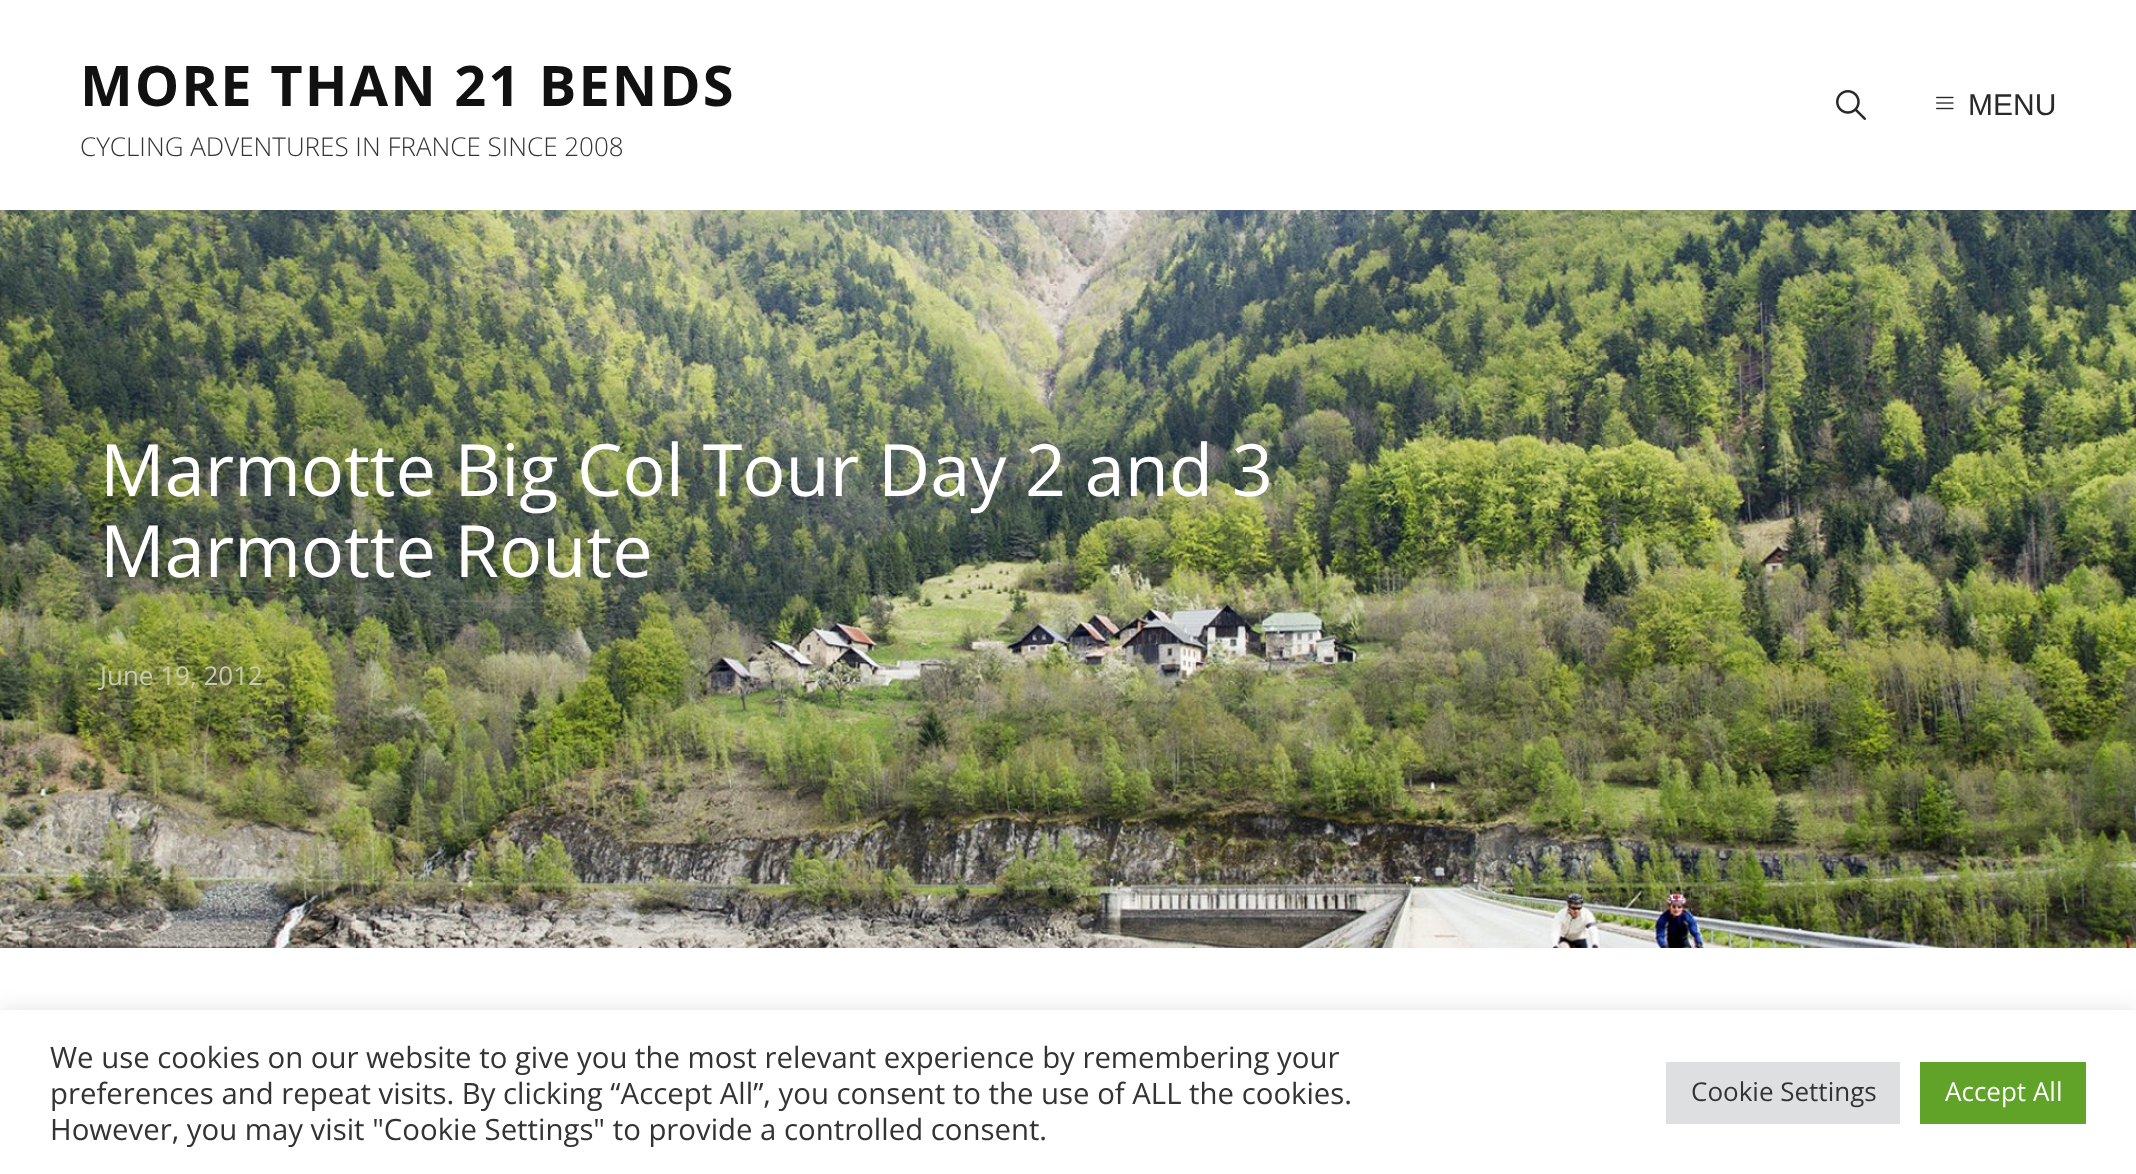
<svg xmlns="http://www.w3.org/2000/svg" width="2136" height="1174" viewBox="0 0 2136 1174">
  <rect width="100%" height="100%" fill="rgb(255,255,255)"/>
  <text x="80" y="106" font-family="Open Sans" font-size="56" font-weight="bold" letter-spacing="2" fill="rgb(17,17,17)">MORE THAN 21 BENDS</text>
  <text x="80" y="156" font-family="Open Sans" font-size="26" font-weight="300" fill="rgb(51,51,51)">CYCLING ADVENTURES IN FRANCE SINCE 2008</text>
  <image x="1836" y="90" width="30" height="30" href="pic1.png"/>
  <image x="1936" y="96" width="18" height="14" href="pic2.png"/>
  <text x="1968" y="115" font-family="Liberation Sans" font-size="30" fill="rgb(41,41,41)">MENU</text>
  <image x="0" y="210" width="2136" height="738" href="pic3.png"/>
  <g font-family="Open Sans" font-size="72" fill="rgb(255,255,255)">
    <text>
      <tspan x="100" y="496">Marmotte Big Col Tour Day 2 and 3</tspan>
      <tspan x="100" y="577">Marmotte Route</tspan>
    </text>
  </g>
  <text x="100" y="685" font-family="Open Sans" font-size="26" fill="rgb(202,205,177)">June 19, 2012</text>
  <rect x="0" y="1008" width="2136" height="164" fill="rgba(172,171,171,0.3)" filter="blur(10px)"/>
  <rect x="0" y="1010" width="2136" height="164" fill="rgb(255,255,255)"/>
  <g font-family="Open Sans" font-size="29.35" fill="rgb(51,51,51)">
    <text>
      <tspan x="50" y="1068">We use cookies on our website to give you the most relevant experience by remembering your</tspan>
      <tspan x="50" y="1104">preferences and repeat visits. By clicking “Accept All”, you consent to the use of ALL the cookies.</tspan>
      <tspan x="50" y="1140">However, you may visit "Cookie Settings" to provide a controlled consent.</tspan>
    </text>
  </g>
  <rect x="1666" y="1062" width="234" height="62" fill="rgb(222,223,224)"/>
  <text x="1691" y="1101" font-family="Open Sans" font-size="26" fill="rgb(51,51,51)">Cookie Settings</text>
  <rect x="1920" y="1062" width="166" height="62" fill="rgb(97,162,41)"/>
  <text x="1945" y="1101" font-family="Open Sans" font-size="26" fill="rgb(255,255,255)">Accept All</text>
</svg>
